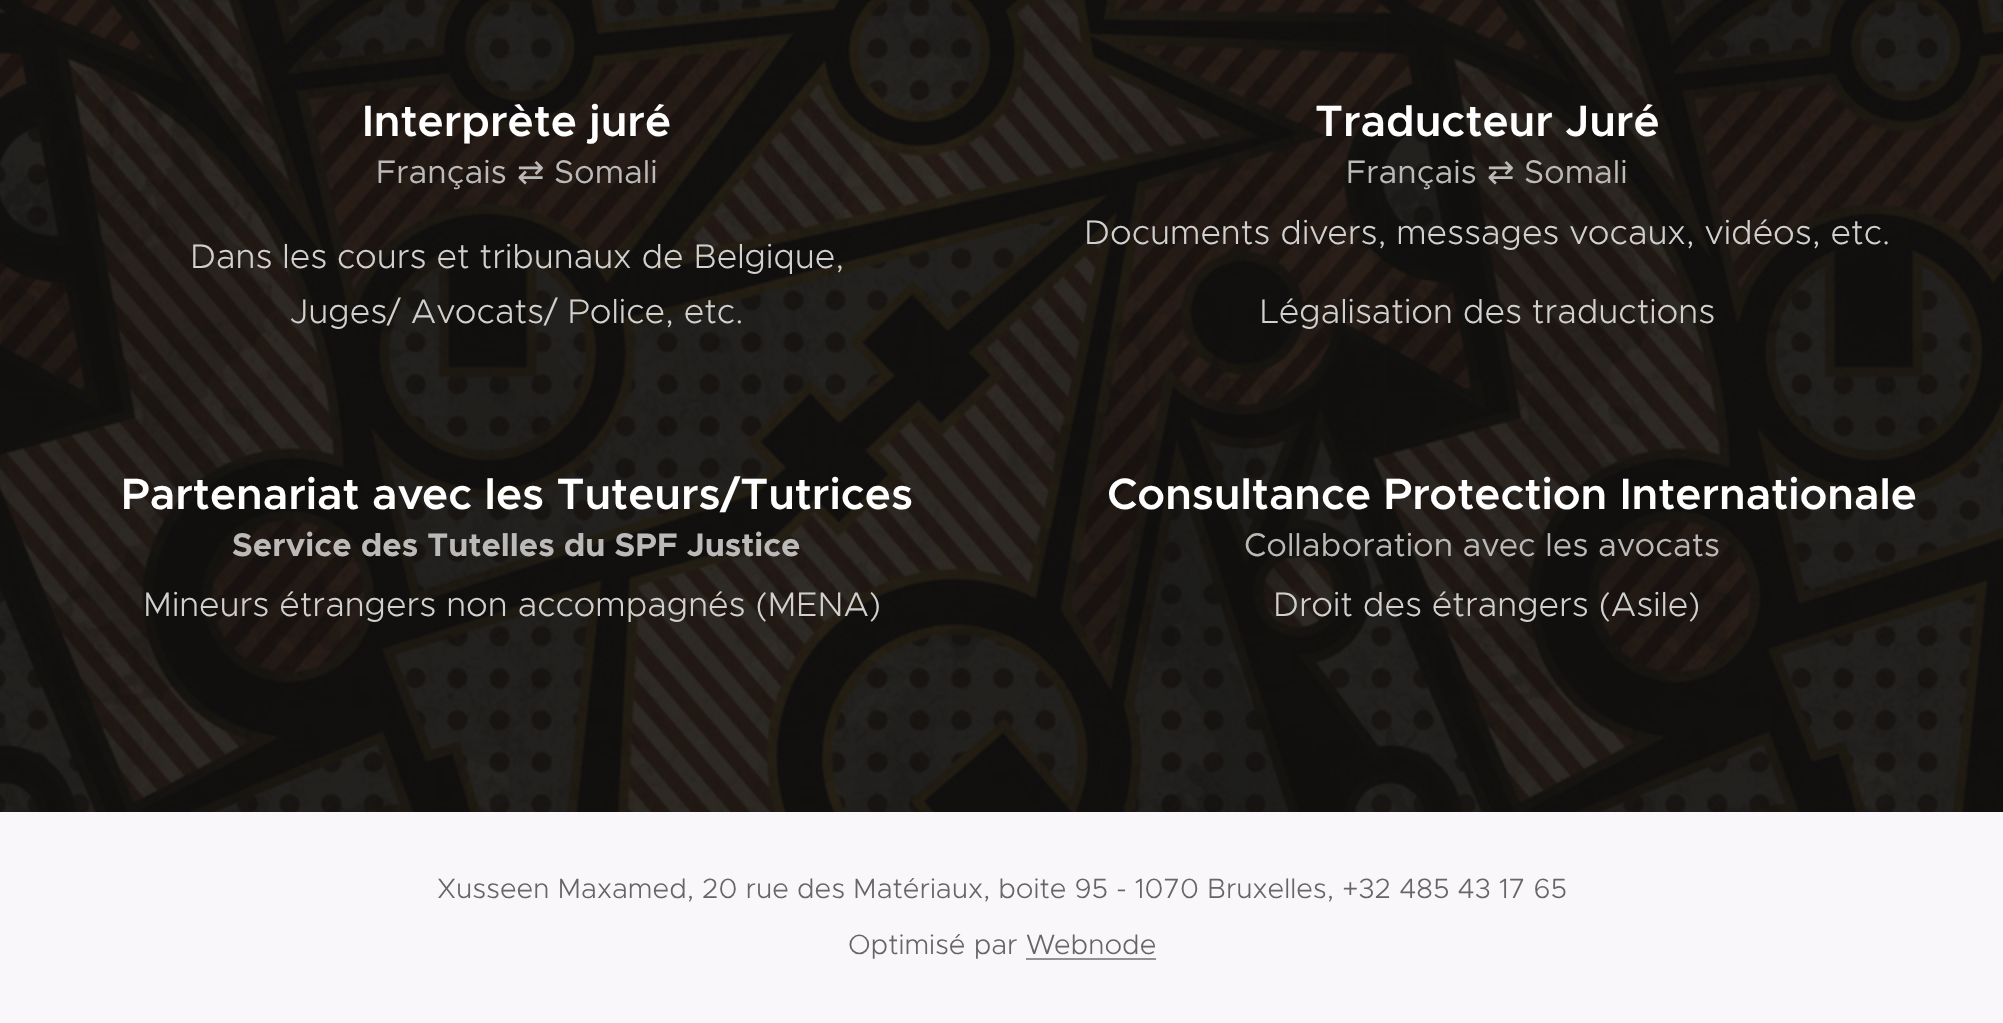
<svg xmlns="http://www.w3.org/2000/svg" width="2003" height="1023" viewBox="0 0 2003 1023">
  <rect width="100%" height="100%" fill="rgb(249,247,250)"/>
  <image x="0" y="0" width="2003" height="812" href="pic1.png"/>
  <text x="362" y="136" font-family="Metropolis" font-size="44" font-weight="600" fill="rgb(255,255,255)">Interprète juré</text>
  <text x="376" y="183" font-family="Metropolis" font-size="32.75" fill="rgb(188,186,184)">Français</text>
  <text x="517" y="183" font-family="DejaVu Sans" font-size="32.75" fill="rgb(188,186,184)">⇄</text>
  <text x="554" y="183" font-family="Metropolis" font-size="32.75" fill="rgb(188,186,184)">Somali</text>
  <g font-family="Metropolis" font-size="34.4" font-weight="300" fill="rgb(209,208,207)">
    <text x="190" y="268">Dans les cours et tribunaux de Belgique,</text>
    <text x="290" y="323">Juges/ Avocats/ Police, etc.</text>
  </g>
  <text x="1315" y="136" font-family="Metropolis" font-size="44" font-weight="600" fill="rgb(255,255,255)">Traducteur Juré</text>
  <text x="1346" y="183" font-family="Metropolis" font-size="32.75" fill="rgb(188,186,184)">Français</text>
  <text x="1487" y="183" font-family="DejaVu Sans" font-size="32.75" fill="rgb(188,186,184)">⇄</text>
  <text x="1524" y="183" font-family="Metropolis" font-size="32.75" fill="rgb(188,186,184)">Somali</text>
  <g font-family="Metropolis" font-size="34.4" font-weight="300" fill="rgb(209,208,207)">
    <text x="1084" y="244">Documents divers, messages vocaux, vidéos, etc.</text>
    <text x="1260" y="323">Légalisation des traductions</text>
  </g>
  <text x="121" y="509" font-family="Metropolis" font-size="44" font-weight="600" fill="rgb(255,255,255)">Partenariat avec les Tuteurs/Tutrices</text>
  <text x="232" y="556" font-family="Metropolis" font-size="32.75" font-weight="bold" fill="rgb(188,186,184)">Service des Tutelles du SPF Justice</text>
  <text x="143" y="616" font-family="Metropolis" font-size="34.4" font-weight="300" fill="rgb(209,208,207)">Mineurs étrangers non accompagnés (MENA)</text>
  <text x="1107" y="509" font-family="Metropolis" font-size="44" font-weight="600" fill="rgb(255,255,255)">Consultance Protection Internationale</text>
  <text x="1244" y="556" font-family="Metropolis" font-size="32.75" fill="rgb(188,186,184)">Collaboration avec les avocats</text>
  <text x="1273" y="616" font-family="Metropolis" font-size="34.4" font-weight="300" fill="rgb(209,208,207)">Droit des étrangers (Asile)</text>
  <g font-family="Metropolis" font-size="28" font-weight="300" fill="rgb(102,102,102)">
    <text x="437" y="898">Xusseen Maxamed, 20 rue des Matériaux, boite 95 - 1070 Bruxelles, +32 485 43 17 65</text>
    <text x="848" y="954">Optimisé par Webnode</text>
  </g>
  <rect x="1026" y="958" width="130" height="2" fill="rgb(146,146,146)"/>
</svg>
